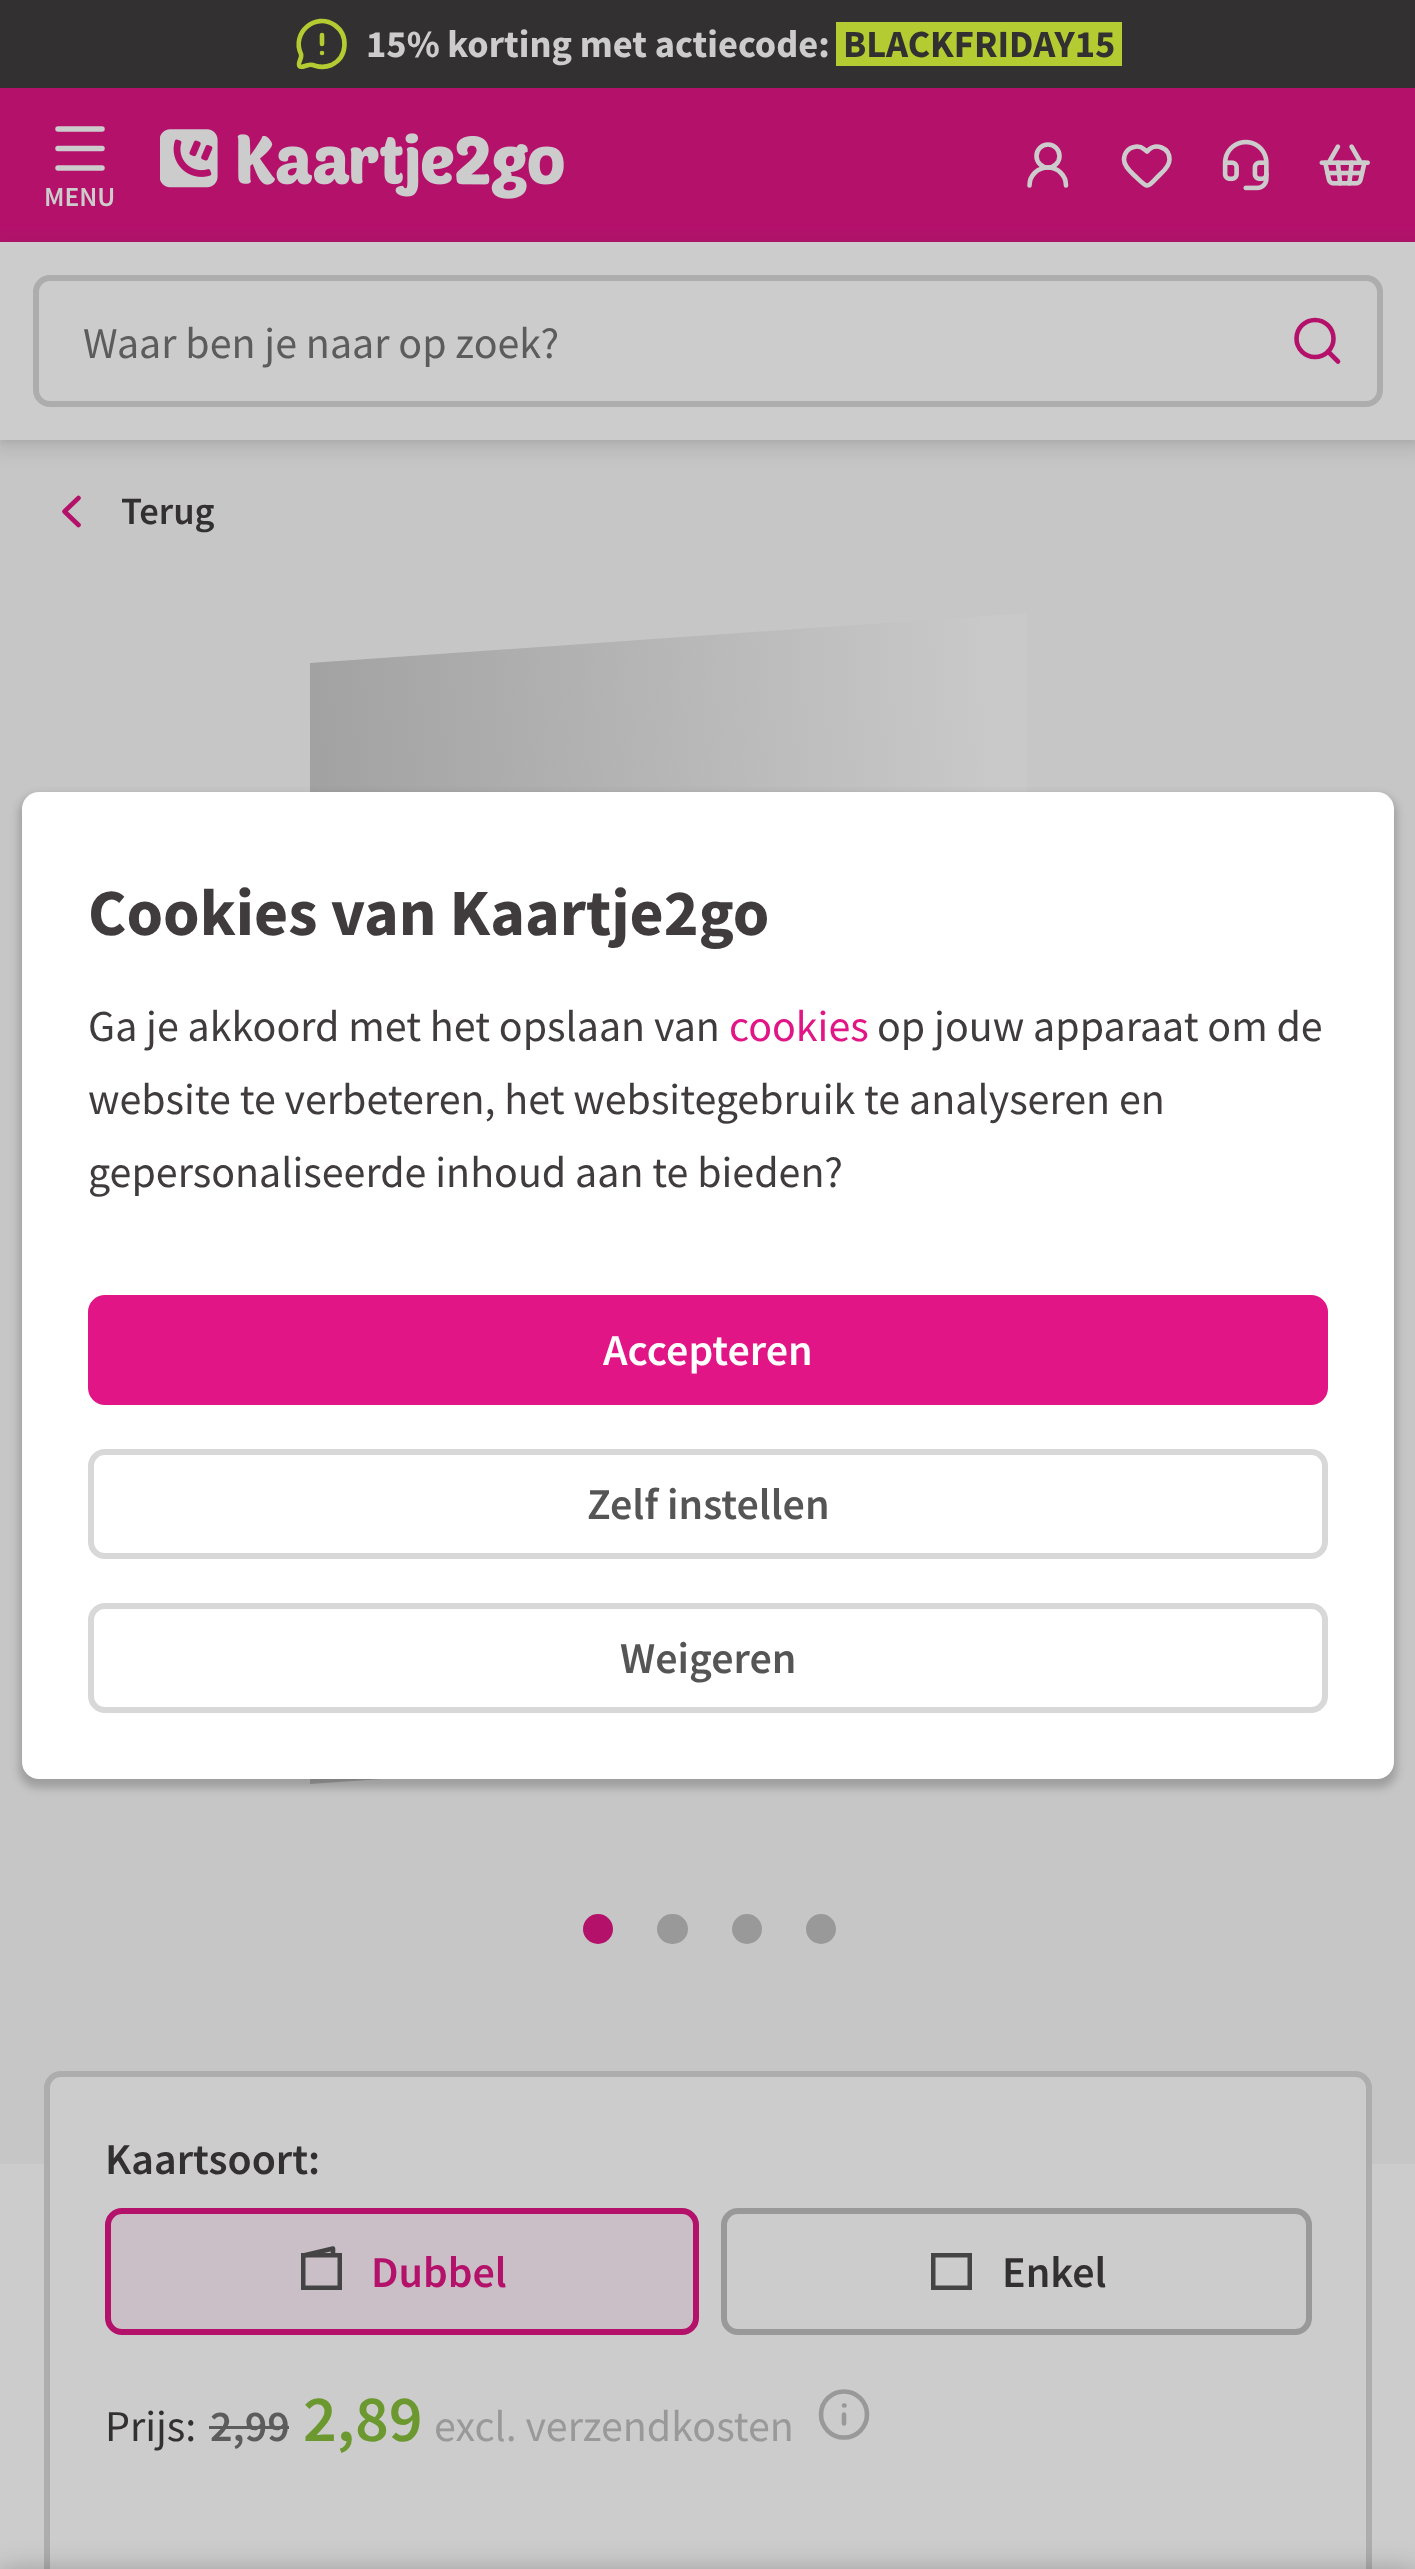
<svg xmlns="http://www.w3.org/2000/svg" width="1415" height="2569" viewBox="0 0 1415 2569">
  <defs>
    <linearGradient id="g1" gradientUnits="userSpaceOnUse" x1="310" y1="1223" x2="1027" y2="1173"><stop offset="0" stop-color="rgb(160,160,160)"/><stop offset="1" stop-color="rgb(201,201,201)"/></linearGradient>
  </defs>
  <rect width="100%" height="100%" fill="rgb(204,204,204)"/>
  <rect x="0" y="0" width="1415" height="88" fill="rgb(51,48,50)"/>
  <path d="M301 54C302.5 58 297 63.5 299.5 66C301 68 304.5 66 306.5 65.5C312 64 310 64.5 316 66C321 67.5 326.5 67 331.5 65C347.5 57.5 349 35 334.5 25C315.5 12 291 33 301 54M322 35V44M322 53H322" fill="none" stroke="rgb(180,204,50)" stroke-width="4.6" stroke-linecap="round" stroke-linejoin="round"/>
  <text x="366" y="57" font-family="Source Sans Pro" font-size="38.5" font-weight="bold" fill="rgb(204,204,204)">15% korting met actiecode:</text>
  <rect x="836" y="22" width="286" height="44" fill="rgb(180,204,50)"/>
  <text x="843" y="57" font-family="Source Sans Pro" font-size="38.5" font-weight="bold" fill="rgb(51,48,50)">BLACKFRIDAY15</text>
  <rect x="0" y="88" width="1415" height="154" fill="rgb(180,17,107)"/>
  <circle cx="1048" cy="156" r="11.5" fill="none" stroke="rgb(204,204,204)" stroke-width="4.6"/>
  <path d="M1066 185.5C1066 175.5 1058 167.5 1048 167.5C1037.5 167.5 1029.5 175.5 1029.5 185.5" fill="none" stroke="rgb(204,204,204)" stroke-width="4.6" stroke-linecap="round" stroke-linejoin="round"/>
  <path d="M1124 159.5C1124 153.5 1128 148 1134 147C1137.5 146 1141.5 147 1144.5 149.5L1147 151.5L1149 149.5C1152.5 146.5 1157.5 146 1161.5 147.5C1166.5 149.5 1169.5 154 1169.5 159.5C1169.5 165.5 1165 170 1160.5 174C1146 188 1149.5 190 1135 176C1130.5 171.5 1124 166.5 1124 159.5" fill="none" stroke="rgb(204,204,204)" stroke-width="4.6" stroke-linecap="round" stroke-linejoin="round"/>
  <image x="1222" y="139" width="47" height="52" href="pic1.png"/>
  <image x="1319" y="144" width="51" height="42" href="pic2.png"/>
  <path d="M58 129H102M58 148.5H102M58 168H102" fill="none" stroke="rgb(204,204,204)" stroke-width="5.5" stroke-linecap="round" stroke-linejoin="round"/>
  <text x="44" y="206" font-family="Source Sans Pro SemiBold" font-size="27.5" font-weight="600" fill="rgb(204,204,204)">MENU</text>
  <image x="160" y="129" width="404" height="70" href="pic3.png"/>
  <rect x="0" y="440" width="1415" height="1724" fill="rgb(198,198,198)"/>
  <rect x="-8" y="239" width="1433" height="215" fill="rgba(79,79,79,0.1)" filter="blur(8px)"/>
  <rect x="0" y="245" width="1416" height="198" fill="rgba(53,53,53,0.1)" filter="blur(3px)"/>
  <rect x="0" y="242" width="1415" height="198" fill="rgb(204,204,204)"/>
  <rect x="36" y="278" width="1344" height="126" rx="14" fill="none" stroke="rgb(173,173,173)" stroke-width="6"/>
  <text x="83" y="358" font-family="Source Sans Pro" font-size="44" fill="rgb(92,92,92)">Waar ben je naar op zoek?</text>
  <path d="M1338 361.5L1328 351.5" fill="none" stroke="rgb(180,17,107)" stroke-width="4.6" stroke-linecap="round" stroke-linejoin="round"/>
  <circle cx="1315" cy="338.5" r="18.5" fill="none" stroke="rgb(180,17,107)" stroke-width="4.6"/>
  <path d="M78.5 525L64.5 511.5L78.5 498" fill="none" stroke="rgb(180,17,107)" stroke-width="4.6" stroke-linecap="round" stroke-linejoin="round"/>
  <text x="121" y="524" font-family="Source Sans Pro SemiBold" font-size="38.5" font-weight="600" fill="rgb(51,48,50)">Terug</text>
  <path d="M310 663L1027 613V1734L310 1784Z" fill="url(#g1)"/>
  <circle cx="598" cy="1929" r="15" fill="rgb(180,17,107)"/>
  <rect x="657" y="1914" width="31" height="30" rx="15" fill="rgb(153,153,153)"/>
  <circle cx="747" cy="1929" r="15" fill="rgb(153,153,153)"/>
  <circle cx="821" cy="1929" r="15" fill="rgb(153,153,153)"/>
  <rect x="47" y="2074" width="1322" height="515" rx="14" fill="rgb(204,204,204)" stroke="rgb(173,173,173)" stroke-width="6"/>
  <g font-family="Source Sans Pro SemiBold" font-size="44" font-weight="600" fill="rgb(51,48,50)">
    <text x="105" y="2174">Kaartsoort</text>
    <text x="308" y="2174">:</text>
  </g>
  <rect x="108" y="2211" width="588" height="121" rx="14" fill="rgb(202,191,198)" stroke="rgb(180,17,107)" stroke-width="6"/>
  <path d="M303.5 2255.5L333 2248.5V2253" fill="none" stroke="rgb(68,68,68)" stroke-width="4.6" stroke-linecap="round" stroke-linejoin="round"/>
  <rect x="303.25" y="2255.25" width="36.5" height="32.5" fill="none" stroke="rgb(68,68,68)" stroke-width="4.5"/>
  <text x="371" y="2287" font-family="Source Sans Pro SemiBold" font-size="44" font-weight="600" fill="rgb(180,17,107)">Dubbel</text>
  <rect x="724" y="2211" width="585" height="121" rx="14" fill="none" stroke="rgb(153,153,153)" stroke-width="6"/>
  <rect x="933.25" y="2255.25" width="36.5" height="32.5" fill="none" stroke="rgb(68,68,68)" stroke-width="4.5"/>
  <text x="1002" y="2287" font-family="Source Sans Pro SemiBold" font-size="44" font-weight="600" fill="rgb(51,48,50)">Enkel</text>
  <text x="105" y="2441" font-family="Source Sans Pro" font-size="44" fill="rgb(51,48,50)">Prijs:</text>
  <text x="210" y="2441" font-family="Source Sans Pro SemiBold" font-size="44" font-weight="600" fill="rgb(92,92,92)">2,99</text>
  <rect x="209" y="2426" width="80" height="3" fill="rgb(92,92,92)"/>
  <text x="303" y="2441" font-family="Source Sans Pro SemiBold" font-size="66" font-weight="600" fill="rgb(108,152,48)">2,89</text>
  <text x="434" y="2441" font-family="Source Sans Pro" font-size="44" fill="rgb(153,153,153)">excl. verzendkosten</text>
  <circle cx="844" cy="2414.5" r="23" fill="none" stroke="rgb(153,153,153)" stroke-width="4.6"/>
  <path d="M844 2423.5V2414.5M844 2405.5H844.5" fill="none" stroke="rgb(153,153,153)" stroke-width="4.6" stroke-linecap="round" stroke-linejoin="round"/>
  <rect x="0" y="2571" width="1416" height="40" fill="rgba(0,0,0,0.25)" filter="blur(14px)"/>
  <rect x="19" y="795" width="1378" height="993" rx="19" fill="rgba(0,0,0,0.2)" filter="blur(4px)"/>
  <rect x="22" y="792" width="1372" height="987" rx="17" fill="rgb(255,255,255)"/>
  <text x="88" y="935" font-family="Source Sans Pro" font-size="66" font-weight="bold" fill="rgb(64,60,62)">Cookies van Kaartje2go</text>
  <text x="88" y="1041" font-family="Source Sans Pro" font-size="44" fill="rgb(64,60,62)">Ga je akkoord met het opslaan van</text>
  <text x="729" y="1041" font-family="Source Sans Pro" font-size="44" fill="rgb(225,21,134)">cookies</text>
  <g font-family="Source Sans Pro" font-size="44" fill="rgb(64,60,62)">
    <text x="877" y="1041">op jouw apparaat om de</text>
    <text>
      <tspan x="88" y="1114">website te verbeteren, het websitegebruik te analyseren en</tspan>
      <tspan x="88" y="1187">gepersonaliseerde inhoud aan te bieden?</tspan>
    </text>
  </g>
  <rect x="88" y="1295" width="1240" height="110" rx="17" fill="rgb(225,21,134)"/>
  <text x="603" y="1365" font-family="Source Sans Pro SemiBold" font-size="44" font-weight="600" fill="rgb(255,255,255)">Accepteren</text>
  <rect x="91" y="1452" width="1234" height="104" rx="14" fill="none" stroke="rgb(216,216,216)" stroke-width="6"/>
  <text x="587" y="1519" font-family="Source Sans Pro SemiBold" font-size="44" font-weight="600" fill="rgb(85,85,85)">Zelf instellen</text>
  <rect x="91" y="1606" width="1234" height="104" rx="14" fill="none" stroke="rgb(216,216,216)" stroke-width="6"/>
  <text x="620" y="1673" font-family="Source Sans Pro SemiBold" font-size="44" font-weight="600" fill="rgb(85,85,85)">Weigeren</text>
</svg>
